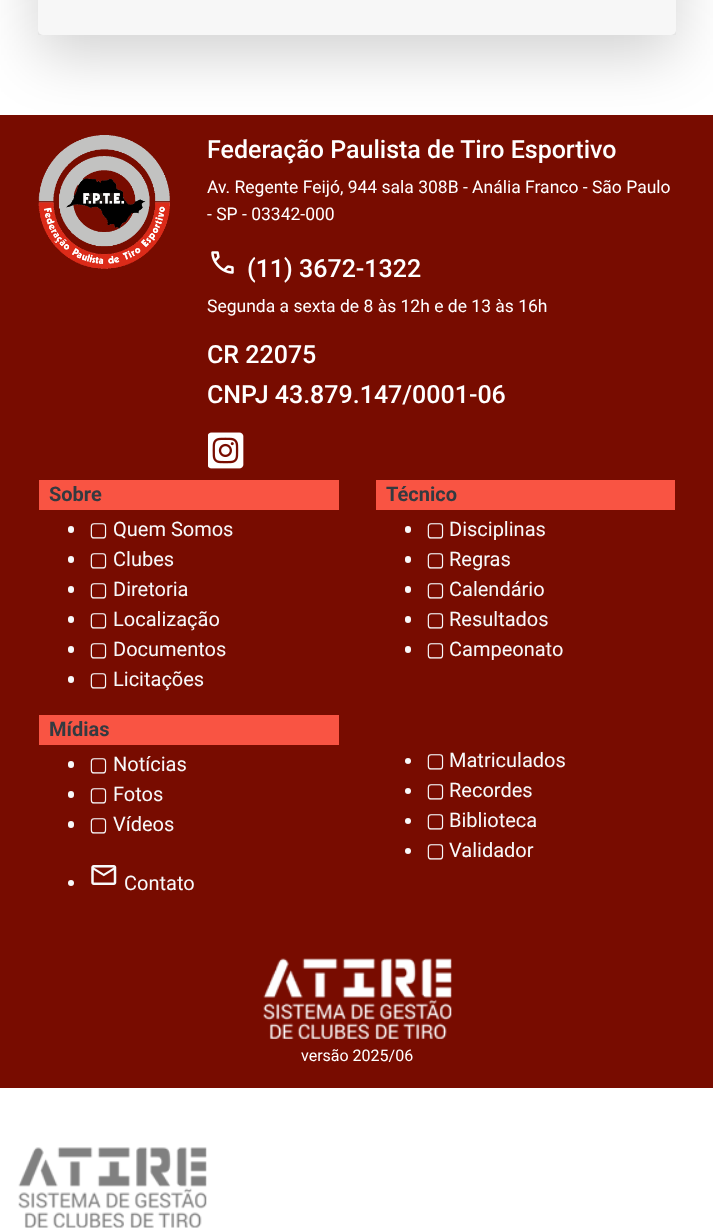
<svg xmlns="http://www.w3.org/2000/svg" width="713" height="1232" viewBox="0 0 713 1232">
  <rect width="100%" height="100%" fill="rgb(255,255,255)"/>
  <rect x="0" y="115" width="713" height="973" fill="rgb(120,12,0)"/>
  <rect x="38" y="-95" width="638" height="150" rx="5" fill="rgba(0,0,0,0.18)" filter="blur(30px)"/>
  <rect x="38" y="-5" width="638" height="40" rx="5" fill="rgb(255,255,255)"/>
  <rect x="38" y="0" width="638" height="35" fill="rgba(0,0,0,0.03)"/>
  <image x="38" y="135" width="132" height="134" href="pic1.png"/>
  <text x="207" y="158" font-family="Roboto" font-size="25" font-weight="500" fill="rgb(255,255,255)">Federação Paulista de Tiro Esportivo</text>
  <g font-family="Roboto" font-size="17.5" fill="rgb(255,255,255)">
    <text>
      <tspan x="207" y="193">Av. Regente Feijó, 944 sala 308B - Anália Franco - São Paulo</tspan>
      <tspan x="207" y="220">- SP - 03342-000</tspan>
    </text>
  </g>
  <image x="211" y="251" width="23" height="23" href="pic2.png"/>
  <text x="247" y="277" font-family="Roboto" font-size="25" font-weight="500" fill="rgb(255,255,255)">(11) 3672-1322</text>
  <text x="207" y="312" font-family="Roboto" font-size="17.5" fill="rgb(255,255,255)">Segunda a sexta de 8 às 12h e de 13 às 16h</text>
  <g font-family="Roboto" font-size="25" font-weight="500" fill="rgb(255,255,255)">
    <text>
      <tspan x="207" y="363">CR 22075</tspan>
      <tspan x="207" y="403">CNPJ 43.879.147/0001-06</tspan>
    </text>
  </g>
  <image x="208" y="432" width="36" height="37" href="pic3.png"/>
  <rect x="39" y="480" width="300" height="30" fill="rgb(249,84,67)"/>
  <text x="49" y="501" font-family="Roboto" font-size="20" font-weight="bold" fill="rgb(52,58,64)">Sobre</text>
  <rect x="68" y="526" width="6" height="7" rx="3" fill="rgb(248,249,250)"/>
  <text x="89" y="536" font-family="DejaVu Sans" font-size="20" fill="rgb(248,249,250)">▢</text>
  <text x="113" y="536" font-family="Roboto" font-size="20" fill="rgb(248,249,250)">Quem Somos</text>
  <rect x="68" y="556" width="6" height="7" rx="3" fill="rgb(248,249,250)"/>
  <text x="89" y="566" font-family="DejaVu Sans" font-size="20" fill="rgb(248,249,250)">▢</text>
  <text x="113" y="566" font-family="Roboto" font-size="20" fill="rgb(248,249,250)">Clubes</text>
  <rect x="68" y="586" width="6" height="7" rx="3" fill="rgb(248,249,250)"/>
  <text x="89" y="596" font-family="DejaVu Sans" font-size="20" fill="rgb(248,249,250)">▢</text>
  <text x="113" y="596" font-family="Roboto" font-size="20" fill="rgb(248,249,250)">Diretoria</text>
  <rect x="68" y="616" width="6" height="7" rx="3" fill="rgb(248,249,250)"/>
  <text x="89" y="626" font-family="DejaVu Sans" font-size="20" fill="rgb(248,249,250)">▢</text>
  <text x="113" y="626" font-family="Roboto" font-size="20" fill="rgb(248,249,250)">Localização</text>
  <rect x="68" y="646" width="6" height="7" rx="3" fill="rgb(248,249,250)"/>
  <text x="89" y="656" font-family="DejaVu Sans" font-size="20" fill="rgb(248,249,250)">▢</text>
  <text x="113" y="656" font-family="Roboto" font-size="20" fill="rgb(248,249,250)">Documentos</text>
  <rect x="68" y="676" width="6" height="7" rx="3" fill="rgb(248,249,250)"/>
  <text x="89" y="686" font-family="DejaVu Sans" font-size="20" fill="rgb(248,249,250)">▢</text>
  <text x="113" y="686" font-family="Roboto" font-size="20" fill="rgb(248,249,250)">Licitações</text>
  <rect x="376" y="480" width="299" height="30" fill="rgb(249,84,67)"/>
  <text x="386" y="501" font-family="Roboto" font-size="20" font-weight="bold" fill="rgb(52,58,64)">Técnico</text>
  <rect x="405" y="526" width="6" height="7" rx="3" fill="rgb(248,249,250)"/>
  <text x="426" y="536" font-family="DejaVu Sans" font-size="20" fill="rgb(248,249,250)">▢</text>
  <text x="449" y="536" font-family="Roboto" font-size="20" fill="rgb(248,249,250)">Disciplinas</text>
  <rect x="405" y="556" width="6" height="7" rx="3" fill="rgb(248,249,250)"/>
  <text x="426" y="566" font-family="DejaVu Sans" font-size="20" fill="rgb(248,249,250)">▢</text>
  <text x="449" y="566" font-family="Roboto" font-size="20" fill="rgb(248,249,250)">Regras</text>
  <rect x="405" y="586" width="6" height="7" rx="3" fill="rgb(248,249,250)"/>
  <text x="426" y="596" font-family="DejaVu Sans" font-size="20" fill="rgb(248,249,250)">▢</text>
  <text x="449" y="596" font-family="Roboto" font-size="20" fill="rgb(248,249,250)">Calendário</text>
  <rect x="405" y="616" width="6" height="7" rx="3" fill="rgb(248,249,250)"/>
  <text x="426" y="626" font-family="DejaVu Sans" font-size="20" fill="rgb(248,249,250)">▢</text>
  <text x="449" y="626" font-family="Roboto" font-size="20" fill="rgb(248,249,250)">Resultados</text>
  <rect x="405" y="646" width="6" height="7" rx="3" fill="rgb(248,249,250)"/>
  <text x="426" y="656" font-family="DejaVu Sans" font-size="20" fill="rgb(248,249,250)">▢</text>
  <text x="449" y="656" font-family="Roboto" font-size="20" fill="rgb(248,249,250)">Campeonato</text>
  <rect x="39" y="715" width="300" height="30" fill="rgb(249,84,67)"/>
  <text x="49" y="736" font-family="Roboto" font-size="20" font-weight="bold" fill="rgb(52,58,64)">Mídias</text>
  <rect x="68" y="761" width="6" height="7" rx="3" fill="rgb(248,249,250)"/>
  <text x="89" y="771" font-family="DejaVu Sans" font-size="20" fill="rgb(248,249,250)">▢</text>
  <text x="113" y="771" font-family="Roboto" font-size="20" fill="rgb(248,249,250)">Notícias</text>
  <rect x="68" y="791" width="6" height="7" rx="3" fill="rgb(248,249,250)"/>
  <text x="89" y="801" font-family="DejaVu Sans" font-size="20" fill="rgb(248,249,250)">▢</text>
  <text x="113" y="801" font-family="Roboto" font-size="20" fill="rgb(248,249,250)">Fotos</text>
  <rect x="68" y="821" width="6" height="7" rx="3" fill="rgb(248,249,250)"/>
  <text x="89" y="831" font-family="DejaVu Sans" font-size="20" fill="rgb(248,249,250)">▢</text>
  <text x="113" y="831" font-family="Roboto" font-size="20" fill="rgb(248,249,250)">Vídeos</text>
  <circle cx="71" cy="883" r="3" fill="rgb(248,249,250)"/>
  <image x="91" y="865" width="26" height="20" href="pic4.png"/>
  <text x="124" y="890" font-family="Roboto" font-size="20" fill="rgb(248,249,250)">Contato</text>
  <circle cx="408" cy="761" r="3" fill="rgb(248,249,250)"/>
  <text x="426" y="767" font-family="DejaVu Sans" font-size="20" fill="rgb(248,249,250)">▢</text>
  <text x="449" y="767" font-family="Roboto" font-size="20" fill="rgb(248,249,250)">Matriculados</text>
  <circle cx="408" cy="791" r="3" fill="rgb(248,249,250)"/>
  <text x="426" y="797" font-family="DejaVu Sans" font-size="20" fill="rgb(248,249,250)">▢</text>
  <text x="449" y="797" font-family="Roboto" font-size="20" fill="rgb(248,249,250)">Recordes</text>
  <circle cx="408" cy="821" r="3" fill="rgb(248,249,250)"/>
  <text x="426" y="827" font-family="DejaVu Sans" font-size="20" fill="rgb(248,249,250)">▢</text>
  <text x="449" y="827" font-family="Roboto" font-size="20" fill="rgb(248,249,250)">Biblioteca</text>
  <circle cx="408" cy="851" r="3" fill="rgb(248,249,250)"/>
  <text x="426" y="857" font-family="DejaVu Sans" font-size="20" fill="rgb(248,249,250)">▢</text>
  <text x="449" y="857" font-family="Roboto" font-size="20" fill="rgb(248,249,250)">Validador</text>
  <image x="263" y="958" width="189" height="81" href="pic5.png"/>
  <text x="301" y="1061" font-family="Roboto" font-size="16" fill="rgb(255,255,255)">versão 2025/06</text>
  <image x="18" y="1147" width="189" height="81" href="pic6.png"/>
</svg>
